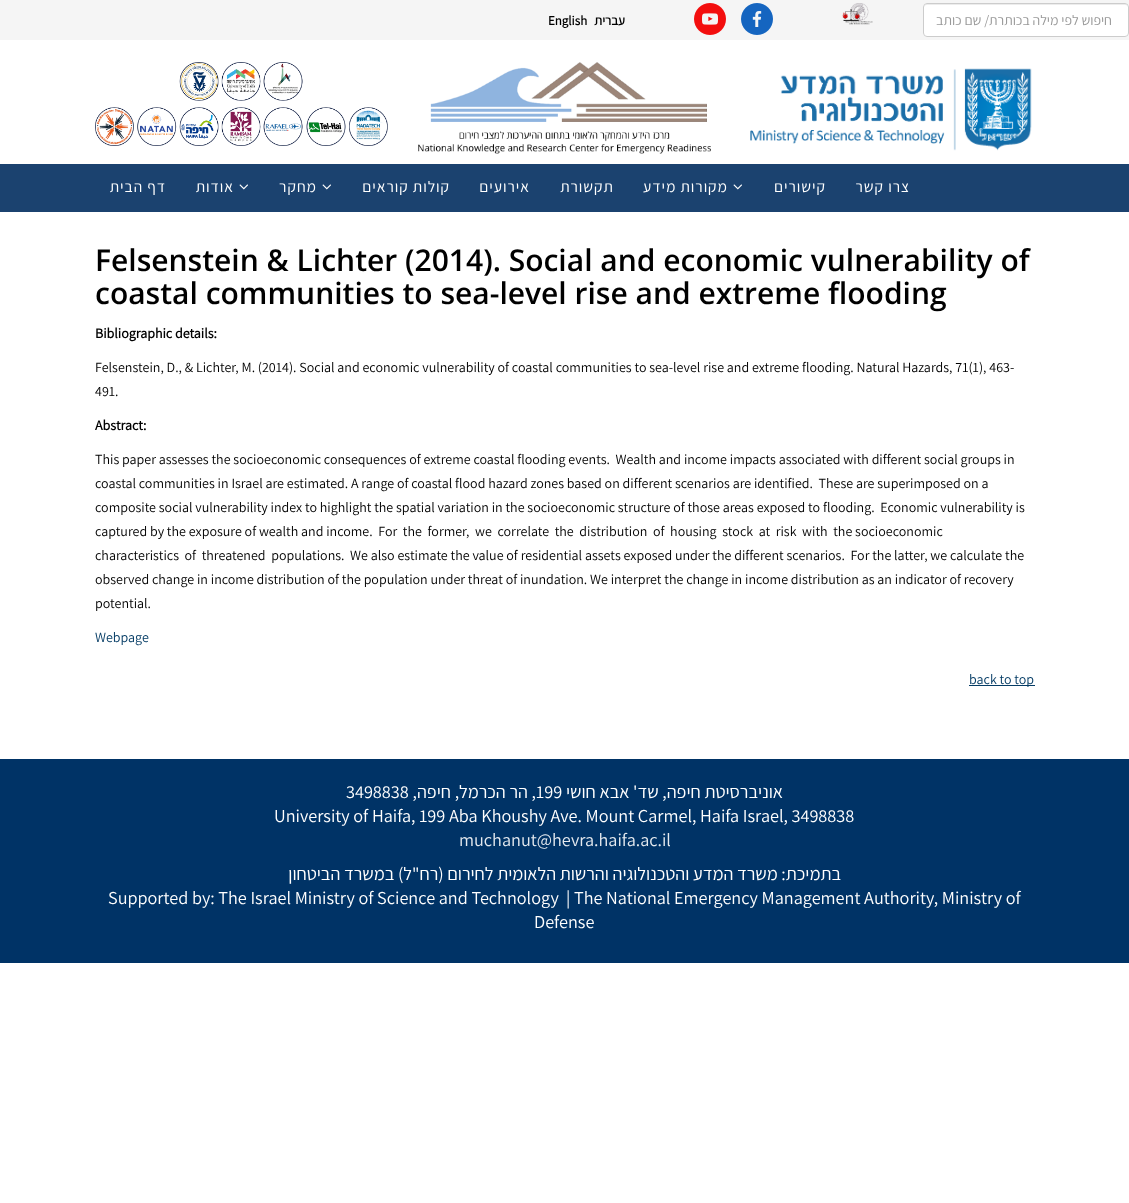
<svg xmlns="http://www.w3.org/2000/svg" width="1129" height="1203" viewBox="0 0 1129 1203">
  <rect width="100%" height="100%" fill="rgb(255,255,255)"/>
  <rect x="0" y="0" width="1129" height="40" fill="rgb(245,245,245)"/>
  <text x="548" y="25" font-family="Assistant" font-size="13" font-weight="bold" fill="rgb(0,0,0)">English</text>
  <text x="625" y="25" font-family="Assistant" font-size="13" font-weight="bold" direction="rtl" fill="rgb(0,0,0)">עברית</text>
  <image x="694" y="3" width="32" height="32" href="pic1.png"/>
  <image x="741" y="3" width="32" height="32" href="pic2.png"/>
  <image x="842" y="3" width="31" height="22" href="pic3.png"/>
  <rect x="923" y="3" width="206" height="34" rx="4" fill="rgb(255,255,255)"/>
  <path d="M927 5H1125C1127 5 1128 6 1128 8C1128 6 1127 4 1125 4H927C925 4 924 6 924 8C924 6 925 5 927 5Z" fill="rgb(236,236,236)"/>
  <rect x="923.5" y="3.5" width="205" height="33" rx="3.5" fill="none" stroke="rgb(204,204,204)"/>
  <text x="1112" y="25" font-family="Assistant" font-size="14" font-weight="200" direction="rtl" fill="rgb(153,153,153)">חיפוש לפי מילה בכותרת/ שם כותב</text>
  <image x="95" y="62" width="293" height="84" href="pic4.png"/>
  <image x="418" y="62" width="293" height="92" href="pic5.png"/>
  <image x="750" y="68" width="282" height="83" href="pic6.png"/>
  <rect x="0" y="164" width="1129" height="48" fill="rgb(27,66,111)"/>
  <g font-family="Assistant" font-size="15.5" font-weight="200" letter-spacing="1" direction="rtl" fill="rgb(255,255,255)">
    <text x="166" y="192">דף הבית</text>
    <text x="234" y="192">אודות</text>
  </g>
  <image x="239" y="184" width="9" height="6" href="pic7.png"/>
  <text x="317" y="192" font-family="Assistant" font-size="15.5" font-weight="200" letter-spacing="1" direction="rtl" fill="rgb(255,255,255)">מחקר</text>
  <image x="322" y="184" width="9" height="6" href="pic7.png"/>
  <g font-family="Assistant" font-size="15.5" font-weight="200" letter-spacing="1" direction="rtl" fill="rgb(255,255,255)">
    <text x="450" y="192">קולות קוראים</text>
    <text x="530" y="192">אירועים</text>
    <text x="614" y="192">תקשורת</text>
    <text x="728" y="192">מקורות מידע</text>
  </g>
  <image x="733" y="184" width="9" height="6" href="pic7.png"/>
  <g font-family="Assistant" font-size="15.5" font-weight="200" letter-spacing="1" direction="rtl" fill="rgb(255,255,255)">
    <text x="826" y="192">קישורים</text>
    <text x="910" y="192">צרו קשר</text>
  </g>
  <g font-family="Open Sans" font-size="30" font-weight="600" fill="rgb(0,0,0)">
    <text>
      <tspan x="95" y="271">Felsenstein &amp; Lichter (2014). Social and economic vulnerability of</tspan>
      <tspan x="95" y="304">coastal communities to sea-level rise and extreme flooding</tspan>
    </text>
  </g>
  <text x="95" y="338" font-family="Assistant" font-size="14" font-weight="bold" fill="rgb(0,0,0)">Bibliographic details:</text>
  <g font-family="Assistant" font-size="14" font-weight="200" fill="rgb(0,0,0)">
    <text>
      <tspan x="95" y="372">Felsenstein, D., &amp; Lichter, M. (2014). Social and economic vulnerability of coastal communities to sea-level rise and extreme flooding. Natural Hazards, 71(1), 463-</tspan>
      <tspan x="95" y="396">491.</tspan>
    </text>
  </g>
  <text x="95" y="430" font-family="Assistant" font-size="14" font-weight="bold" fill="rgb(0,0,0)">Abstract:</text>
  <g font-family="Assistant" font-size="14" font-weight="200" fill="rgb(0,0,0)">
    <text xml:space="preserve"><tspan x="95" y="464">This paper assesses the socioeconomic consequences of extreme coastal flooding events.  Wealth and income impacts associated with different social groups in</tspan><tspan x="95" y="488">coastal communities in Israel are estimated. A range of coastal flood hazard zones based on different scenarios are identified.  These are superimposed on a</tspan><tspan x="95" y="512">composite social vulnerability index to highlight the spatial variation in the socioeconomic structure of those areas exposed to flooding.  Economic vulnerability is</tspan><tspan x="95" y="536">captured by the exposure of wealth and income.  For  the  former,  we  correlate  the  distribution  of  housing  stock  at  risk  with  the socioeconomic</tspan><tspan x="95" y="560">characteristics  of  threatened  populations.  We also estimate the value of residential assets exposed under the different scenarios.  For the latter, we calculate the</tspan><tspan x="95" y="584">observed change in income distribution of the population under threat of inundation. We interpret the change in income distribution as an indicator of recovery</tspan><tspan x="95" y="608">potential.</tspan></text>
  </g>
  <text x="95" y="642" font-family="Assistant" font-size="14" font-weight="200" fill="rgb(5,60,101)">Webpage</text>
  <rect x="969" y="685" width="66" height="1" fill="rgb(5,60,101)"/>
  <text x="969" y="684" font-family="Assistant" font-size="14" font-weight="200" fill="rgb(5,60,101)">back to top</text>
  <rect x="0" y="759" width="1129" height="204" fill="rgb(0,51,102)"/>
  <text x="346" y="798" font-family="Assistant" font-size="18.2" font-weight="200" fill="rgb(255,255,255)">3498838</text>
  <text x="536" y="798" font-family="Assistant" font-size="18.2" font-weight="200" direction="rtl" fill="rgb(255,255,255)">, הר הכרמל, חיפה,</text>
  <text x="536" y="798" font-family="Assistant" font-size="18.2" font-weight="200" fill="rgb(255,255,255)">199</text>
  <text x="783" y="798" font-family="Assistant" font-size="18.2" font-weight="200" direction="rtl" fill="rgb(255,255,255)">אוניברסיטת חיפה, שד' אבא חושי</text>
  <text x="274" y="822" font-family="Assistant" font-size="18.2" font-weight="200" fill="rgb(255,255,255)">University of Haifa, 199 Aba Khoushy Ave. Mount Carmel, Haifa Israel, 3498838</text>
  <text x="459" y="846" font-family="Assistant" font-size="18.2" font-weight="200" fill="rgb(230,235,240)">muchanut@hevra.haifa.ac.il</text>
  <text x="841" y="880" font-family="Assistant" font-size="18.2" font-weight="200" direction="rtl" fill="rgb(255,255,255)">בתמיכת: משרד המדע והטכנולוגיה והרשות הלאומית לחירום (רח"ל) במשרד הביטחון</text>
  <g font-family="Assistant" font-size="18.2" font-weight="200" fill="rgb(255,255,255)">
    <text x="108" y="904">Supported by: The Israel Ministry of Science and Technology</text>
    <text x="566" y="904">| The National Emergency Management Authority, Ministry of</text>
    <text x="534" y="928">Defense</text>
  </g>
</svg>
